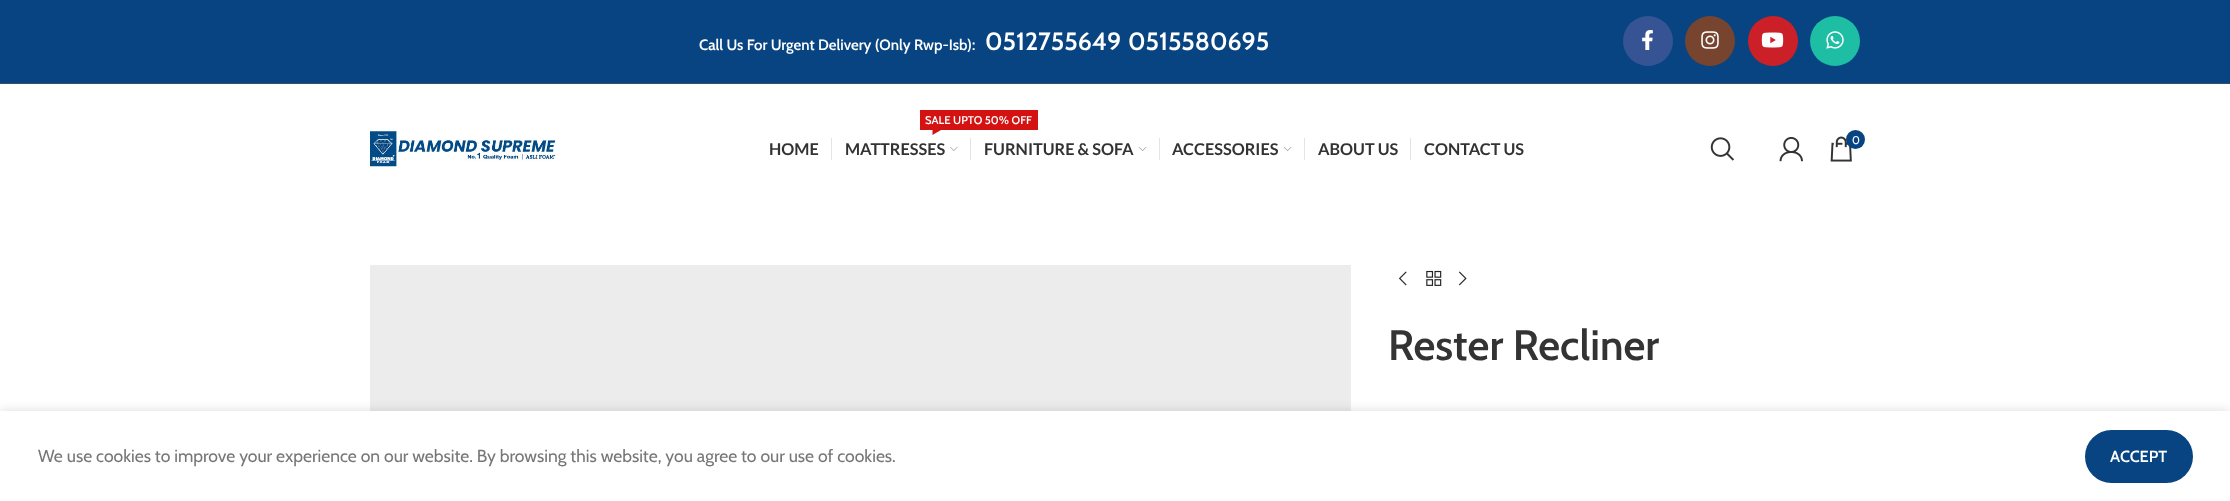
<svg xmlns="http://www.w3.org/2000/svg" width="2230" height="501" viewBox="0 0 2230 501">
  <rect width="100%" height="100%" fill="rgb(255,255,255)"/>
  <rect x="0" y="0" width="2230" height="83" fill="rgb(7,68,129)"/>
  <rect x="0" y="83" width="2230" height="1" fill="rgb(58,77,105)"/>
  <text x="699" y="50" font-family="Cabin" font-size="15" font-weight="600" fill="rgb(255,255,255)">Call Us For Urgent Delivery (Only Rwp-Isb):</text>
  <g font-family="Cabin" font-size="25" font-weight="600" fill="rgb(255,255,255)">
    <text x="985" y="50">0512755649</text>
    <text x="1128" y="50">0515580695</text>
  </g>
  <circle cx="1648" cy="41" r="25" fill="rgb(54,84,147)"/>
  <image x="1642" y="30" width="11" height="20" href="pic1.png"/>
  <circle cx="1710" cy="41" r="25" fill="rgb(119,68,48)"/>
  <image x="1701" y="31" width="18" height="18" href="pic2.png"/>
  <circle cx="1773" cy="41" r="25" fill="rgb(203,32,39)"/>
  <image x="1761" y="32" width="23" height="16" href="pic3.png"/>
  <circle cx="1835" cy="41" r="25" fill="rgb(30,190,165)"/>
  <image x="1826" y="31" width="18" height="18" href="pic4.png"/>
  <image x="370" y="131" width="188" height="36" href="pic5.png"/>
  <text x="769" y="155" font-family="Lato" font-size="16.25" font-weight="bold" fill="rgb(51,51,51)">HOME</text>
  <rect x="831" y="138" width="1" height="22" fill="rgb(228,228,228)"/>
  <rect x="920" y="110" width="118" height="20" fill="rgb(212,18,18)"/>
  <text x="925" y="124" font-family="Cabin" font-size="11.25" font-weight="600" fill="rgb(255,255,255)">SALE UPTO 50% OFF</text>
  <path d="M932.5 130H941L932.5 135Z" fill="rgb(212,18,18)"/>
  <text x="845" y="155" font-family="Lato" font-size="16.25" font-weight="bold" fill="rgb(51,51,51)">MATTRESSES</text>
  <image x="950" y="147" width="8" height="4" href="pic6.png"/>
  <rect x="970" y="138" width="1" height="22" fill="rgb(228,228,228)"/>
  <text x="984" y="155" font-family="Lato" font-size="16.25" font-weight="bold" fill="rgb(51,51,51)">FURNITURE &amp; SOFA</text>
  <image x="1138" y="147" width="9" height="4" href="pic7.png"/>
  <rect x="1159" y="138" width="1" height="22" fill="rgb(228,228,228)"/>
  <text x="1172" y="155" font-family="Lato" font-size="16.25" font-weight="bold" fill="rgb(51,51,51)">ACCESSORIES</text>
  <image x="1283" y="147" width="9" height="4" href="pic7.png"/>
  <rect x="1304" y="138" width="1" height="22" fill="rgb(228,228,228)"/>
  <text x="1318" y="155" font-family="Lato" font-size="16.25" font-weight="bold" fill="rgb(51,51,51)">ABOUT US</text>
  <rect x="1410" y="138" width="1" height="22" fill="rgb(228,228,228)"/>
  <text x="1424" y="155" font-family="Lato" font-size="16.25" font-weight="bold" fill="rgb(51,51,51)">CONTACT US</text>
  <image x="1710" y="137" width="24" height="24" href="pic8.png"/>
  <image x="1779" y="137" width="24" height="25" href="pic9.png"/>
  <image x="1830" y="136" width="22" height="26" href="pic10.png"/>
  <circle cx="1855.5" cy="139.5" r="9.5" fill="rgb(7,68,129)"/>
  <text x="1852" y="144" font-family="Cabin" font-size="11.25" fill="rgb(255,255,255)">0</text>
  <image x="370" y="265" width="981" height="146" href="pic11.png"/>
  <image x="1398" y="271" width="9" height="15" href="pic12.png"/>
  <image x="1426" y="270" width="16" height="16" href="pic13.png"/>
  <image x="1458" y="271" width="9" height="15" href="pic14.png"/>
  <text x="1388" y="360" font-family="Cabin" font-size="42.5" font-weight="600" fill="rgb(51,51,51)">Rester Recliner</text>
  <rect x="0" y="411" width="2230" height="90" fill="rgba(0,0,0,0.14)" filter="blur(5.5px)"/>
  <rect x="0" y="411" width="2230" height="90" fill="rgb(255,255,255)"/>
  <text x="38" y="462" font-family="Cabin" font-size="17.5" fill="rgb(119,119,119)">We use cookies to improve your experience on our website. By browsing this website, you agree to our use of cookies.</text>
  <rect x="2085" y="430" width="108" height="53" rx="26.5" fill="rgb(7,68,129)"/>
  <text x="2110" y="462" font-family="Cabin" font-size="16.25" font-weight="600" fill="rgb(255,255,255)">ACCEPT</text>
</svg>
